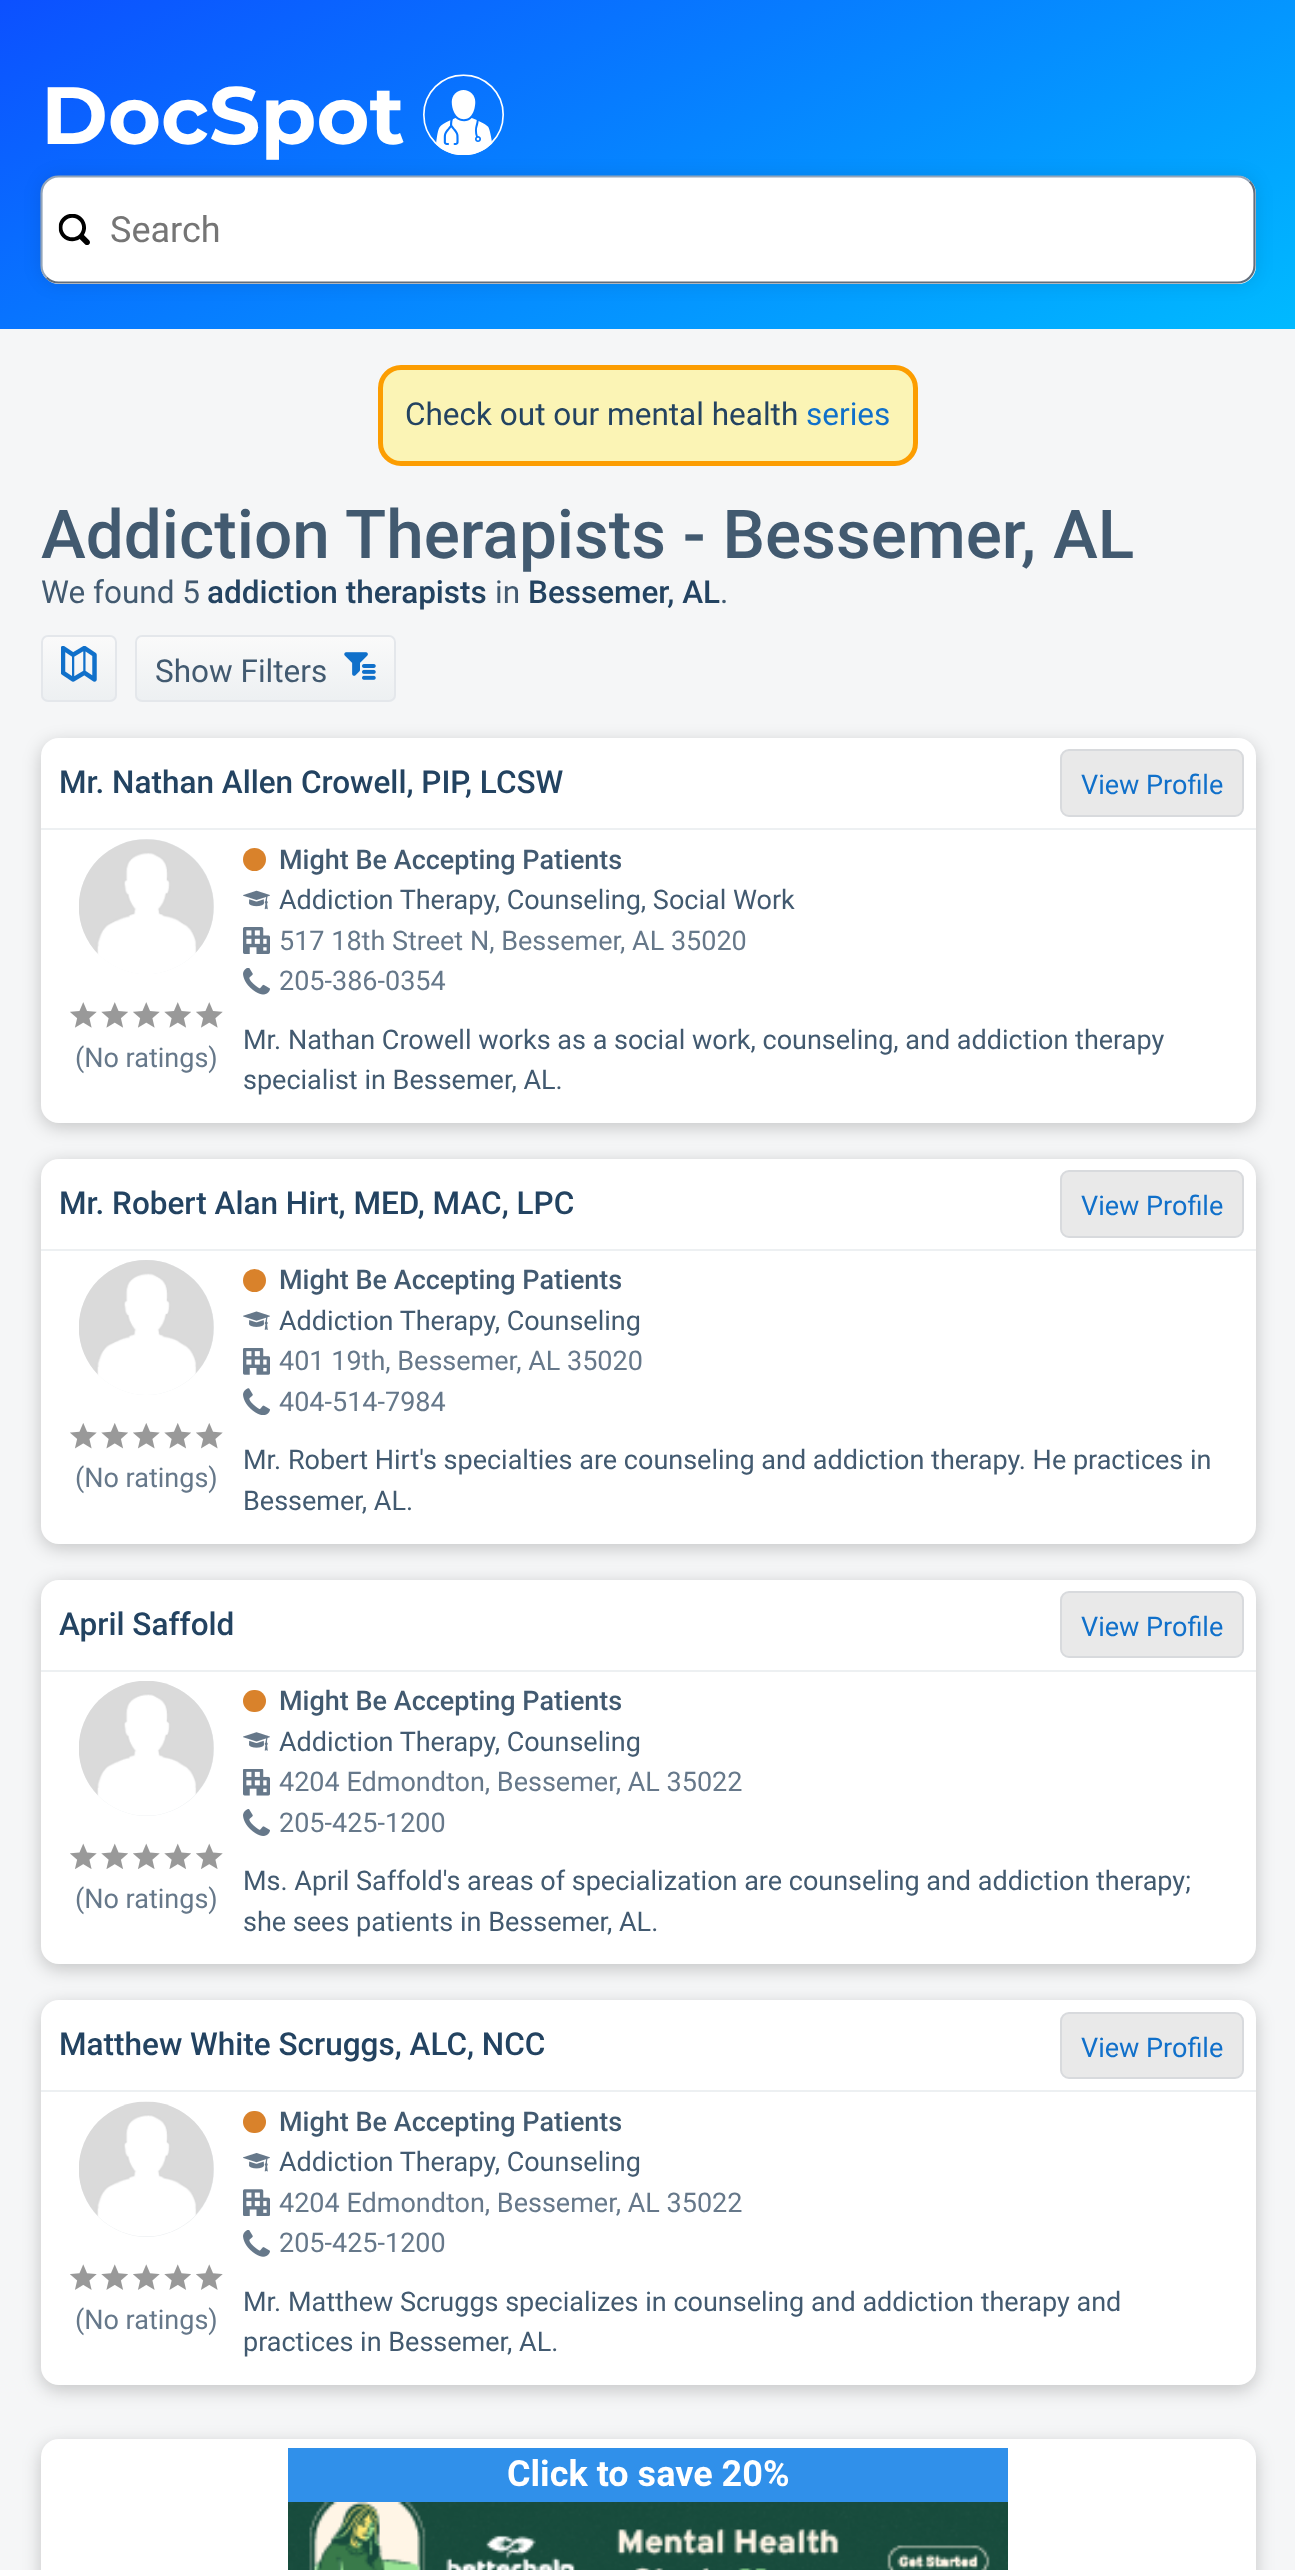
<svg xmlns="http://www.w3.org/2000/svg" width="1295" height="2570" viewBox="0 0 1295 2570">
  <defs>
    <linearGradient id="g1" gradientUnits="userSpaceOnUse" x1="459" y1="-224" x2="837" y2="552"><stop offset="0" stop-color="rgb(12,80,255)"/><stop offset="1" stop-color="rgb(0,186,255)"/></linearGradient>
    <clipPath id="clip1"><rect x="41" y="635" width="76" height="67" rx="7"/></clipPath>
    <linearGradient id="g2" gradientUnits="userSpaceOnUse" x1="79" y1="637" x2="79" y2="700"><stop offset="0" stop-color="rgb(250,250,250)"/><stop offset="1" stop-color="rgb(237,240,242)"/></linearGradient>
    <clipPath id="clip2"><rect x="135" y="635" width="261" height="67" rx="7"/></clipPath>
    <linearGradient id="g3" gradientUnits="userSpaceOnUse" x1="266" y1="637" x2="266" y2="700"><stop offset="0" stop-color="rgb(250,250,250)"/><stop offset="1" stop-color="rgb(237,240,242)"/></linearGradient>
  </defs>
  <rect width="100%" height="100%" fill="rgb(245,246,247)"/>
  <rect x="0" y="0" width="1295" height="329" fill="url(#g1)"/>
  <rect x="41" y="176" width="1215" height="108" rx="18" fill="rgba(0,0,0,0.1)" filter="blur(9px)"/>
  <text x="41" y="144" font-family="Montserrat" font-size="81" font-weight="bold" fill="rgb(255,255,255)">DocSpot</text>
  <image x="423" y="74" width="81" height="81" href="pic1.png"/>
  <rect x="41" y="176" width="1215" height="108" rx="18" fill="rgb(255,255,255)"/>
  <path d="M1249.5 181.5C1252.5 184.5 1254.5 189 1254.5 193.5V265.5C1254.5 270 1252.5 274.5 1249.5 277.5C1246.5 280.5 1242 282.5 1237.5 282.5H58.5C54 282.5 49.5 280.5 46.5 277.5" fill="none" stroke="rgb(98,110,124)" stroke-width="2.2"/>
  <path d="M46.5 277.5C43.5 274.5 41.5 270 41.5 265.5V193.5C41.5 189 43.5 184.5 46.5 181.5C49.5 178.5 54 176.5 58.5 176.5H1237.5C1242 176.5 1246.5 178.5 1249.5 181.5" fill="none" stroke="rgb(147,165,186)" stroke-width="2.2"/>
  <image x="58" y="214" width="32" height="31" href="pic2.png"/>
  <text x="110" y="242" font-family="Roboto" font-size="36" fill="rgb(117,117,117)">Search</text>
  <rect x="380.5" y="367.5" width="535" height="96" rx="20.5" fill="rgb(251,244,181)" stroke="rgb(252,157,1)" stroke-width="5"/>
  <text x="405" y="425" font-family="Roboto" font-size="31.5" fill="rgb(35,67,97)">Check out our mental health</text>
  <text x="806" y="425" font-family="Roboto" font-size="31.5" fill="rgb(16,112,202)">series</text>
  <text x="41" y="558" font-family="Roboto" font-size="67.5" font-weight="500" fill="rgb(66,90,112)">Addiction Therapists - Bessemer, AL</text>
  <text x="41" y="603" font-family="Roboto" font-size="31.5" fill="rgb(66,90,112)">We found 5</text>
  <text x="207" y="603" font-family="Roboto" font-size="31.5" font-weight="500" fill="rgb(35,67,97)">addiction therapists</text>
  <text x="495" y="603" font-family="Roboto" font-size="31.5" fill="rgb(66,90,112)">in</text>
  <text x="528" y="603" font-family="Roboto" font-size="31.5" font-weight="500" fill="rgb(35,67,97)">Bessemer, AL</text>
  <text x="720" y="603" font-family="Roboto" font-size="31.5" fill="rgb(66,90,112)">.</text>
  <g clip-path="url(#clip1)">
    <rect x="41" y="637" width="76" height="63" fill="url(#g2)"/>
  </g>
  <rect x="42" y="636" width="74" height="65" rx="6" fill="none" stroke="rgb(228,231,235)" stroke-width="2"/>
  <image x="61" y="646" width="36" height="36" href="pic3.png"/>
  <g clip-path="url(#clip2)">
    <rect x="135" y="637" width="261" height="63" fill="url(#g3)"/>
  </g>
  <rect x="136" y="636" width="259" height="65" rx="6" fill="none" stroke="rgb(228,231,235)" stroke-width="2"/>
  <text x="155" y="682" font-family="Roboto" font-size="31.5" fill="rgb(66,90,112)">Show Filters</text>
  <image x="344" y="652" width="32" height="28" href="pic4.png"/>
  <rect x="41" y="743" width="1215" height="384" rx="18" fill="rgba(0,0,0,0.2)" filter="blur(9px)"/>
  <rect x="41" y="738" width="1215" height="385" rx="18" fill="rgb(255,255,255)"/>
  <rect x="41" y="828" width="1215" height="2" fill="rgb(237,240,242)"/>
  <text x="59" y="793" font-family="Roboto" font-size="31.5" font-weight="500" fill="rgb(35,67,97)">Mr. Nathan Allen Crowell, PIP, LCSW</text>
  <rect x="1061" y="750" width="182" height="66" rx="8" fill="rgb(233,233,233)" stroke="rgb(216,218,221)" stroke-width="2"/>
  <text x="1081" y="794" font-family="Roboto" font-size="27" fill="rgb(16,112,202)">View Profile</text>
  <circle cx="146.5" cy="906.5" r="67.5" fill="rgb(237,240,242)"/>
  <image x="79" y="839" width="135" height="135" href="pic5.png"/>
  <image x="70" y="1002" width="27" height="26" href="pic6.png"/>
  <image x="101" y="1002" width="27" height="26" href="pic7.png"/>
  <image x="133" y="1002" width="27" height="26" href="pic6.png"/>
  <image x="164" y="1002" width="27" height="26" href="pic7.png"/>
  <image x="196" y="1002" width="27" height="26" href="pic6.png"/>
  <text x="75" y="1067" font-family="Roboto" font-size="27" fill="rgb(102,120,138)">(No ratings)</text>
  <circle cx="254.5" cy="859.5" r="11.5" fill="rgb(217,130,43)"/>
  <text x="279" y="869" font-family="Roboto" font-size="27" font-weight="500" fill="rgb(66,90,112)">Might Be Accepting Patients</text>
  <image x="243" y="890" width="27" height="20" href="pic8.png"/>
  <text x="279" y="909" font-family="Roboto" font-size="27" fill="rgb(66,90,112)">Addiction Therapy, Counseling, Social Work</text>
  <image x="243" y="927" width="27" height="27" href="pic9.png"/>
  <text x="279" y="950" font-family="Roboto" font-size="27" fill="rgb(102,120,138)">517 18th Street N, Bessemer, AL 35020</text>
  <image x="243" y="968" width="27" height="27" href="pic10.png"/>
  <text x="279" y="990" font-family="Roboto" font-size="27" fill="rgb(102,120,138)">205-386-0354</text>
  <g font-family="Roboto" font-size="27" fill="rgb(66,90,112)">
    <text>
      <tspan x="243" y="1049">Mr. Nathan Crowell works as a social work, counseling, and addiction therapy</tspan>
      <tspan x="243" y="1089">specialist in Bessemer, AL.</tspan>
    </text>
  </g>
  <rect x="41" y="1163" width="1215" height="385" rx="18" fill="rgba(0,0,0,0.2)" filter="blur(9px)"/>
  <rect x="41" y="1159" width="1215" height="385" rx="18" fill="rgb(255,255,255)"/>
  <rect x="41" y="1249" width="1215" height="2" fill="rgb(237,240,242)"/>
  <text x="59" y="1214" font-family="Roboto" font-size="31.5" font-weight="500" fill="rgb(35,67,97)">Mr. Robert Alan Hirt, MED, MAC, LPC</text>
  <rect x="1061" y="1171" width="182" height="66" rx="8" fill="rgb(233,233,233)" stroke="rgb(216,218,221)" stroke-width="2"/>
  <text x="1081" y="1215" font-family="Roboto" font-size="27" fill="rgb(16,112,202)">View Profile</text>
  <circle cx="146.5" cy="1327.5" r="67.5" fill="rgb(237,240,242)"/>
  <image x="79" y="1260" width="135" height="135" href="pic11.png"/>
  <image x="70" y="1423" width="27" height="26" href="pic12.png"/>
  <image x="101" y="1423" width="27" height="26" href="pic13.png"/>
  <image x="133" y="1423" width="27" height="26" href="pic12.png"/>
  <image x="164" y="1423" width="27" height="26" href="pic13.png"/>
  <image x="196" y="1423" width="27" height="26" href="pic12.png"/>
  <text x="75" y="1487" font-family="Roboto" font-size="27" fill="rgb(102,120,138)">(No ratings)</text>
  <circle cx="254.5" cy="1280.5" r="11.5" fill="rgb(217,130,43)"/>
  <text x="279" y="1289" font-family="Roboto" font-size="27" font-weight="500" fill="rgb(66,90,112)">Might Be Accepting Patients</text>
  <image x="243" y="1311" width="27" height="19" href="pic14.png"/>
  <text x="279" y="1330" font-family="Roboto" font-size="27" fill="rgb(66,90,112)">Addiction Therapy, Counseling</text>
  <image x="243" y="1348" width="27" height="27" href="pic15.png"/>
  <text x="279" y="1370" font-family="Roboto" font-size="27" fill="rgb(102,120,138)">401 19th, Bessemer, AL 35020</text>
  <image x="243" y="1388" width="27" height="27" href="pic16.png"/>
  <text x="279" y="1411" font-family="Roboto" font-size="27" fill="rgb(102,120,138)">404-514-7984</text>
  <g font-family="Roboto" font-size="27" fill="rgb(66,90,112)">
    <text>
      <tspan x="243" y="1469">Mr. Robert Hirt's specialties are counseling and addiction therapy. He practices in</tspan>
      <tspan x="243" y="1510">Bessemer, AL.</tspan>
    </text>
  </g>
  <rect x="41" y="1584" width="1215" height="385" rx="18" fill="rgba(0,0,0,0.2)" filter="blur(9px)"/>
  <rect x="41" y="1580" width="1215" height="384" rx="18" fill="rgb(255,255,255)"/>
  <rect x="41" y="1670" width="1215" height="2" fill="rgb(237,240,242)"/>
  <text x="59" y="1635" font-family="Roboto" font-size="31.5" font-weight="500" fill="rgb(35,67,97)">April Saffold</text>
  <rect x="1061" y="1592" width="182" height="65" rx="8" fill="rgb(233,233,233)" stroke="rgb(216,218,221)" stroke-width="2"/>
  <text x="1081" y="1636" font-family="Roboto" font-size="27" fill="rgb(16,112,202)">View Profile</text>
  <circle cx="146.5" cy="1748.5" r="67.5" fill="rgb(237,240,242)"/>
  <image x="79" y="1681" width="135" height="135" href="pic17.png"/>
  <image x="70" y="1843" width="27" height="26" href="pic18.png"/>
  <image x="101" y="1843" width="27" height="26" href="pic19.png"/>
  <image x="133" y="1843" width="27" height="26" href="pic18.png"/>
  <image x="164" y="1843" width="27" height="26" href="pic19.png"/>
  <image x="196" y="1843" width="27" height="26" href="pic18.png"/>
  <text x="75" y="1908" font-family="Roboto" font-size="27" fill="rgb(102,120,138)">(No ratings)</text>
  <rect x="243" y="1690" width="23" height="22" rx="11" fill="rgb(217,130,43)"/>
  <text x="279" y="1710" font-family="Roboto" font-size="27" font-weight="500" fill="rgb(66,90,112)">Might Be Accepting Patients</text>
  <image x="243" y="1732" width="27" height="19" href="pic20.png"/>
  <text x="279" y="1751" font-family="Roboto" font-size="27" fill="rgb(66,90,112)">Addiction Therapy, Counseling</text>
  <image x="243" y="1769" width="27" height="27" href="pic21.png"/>
  <text x="279" y="1791" font-family="Roboto" font-size="27" fill="rgb(102,120,138)">4204 Edmondton, Bessemer, AL 35022</text>
  <image x="243" y="1809" width="27" height="27" href="pic22.png"/>
  <text x="279" y="1832" font-family="Roboto" font-size="27" fill="rgb(102,120,138)">205-425-1200</text>
  <g font-family="Roboto" font-size="27" fill="rgb(66,90,112)">
    <text>
      <tspan x="243" y="1890">Ms. April Saffold's areas of specialization are counseling and addiction therapy;</tspan>
      <tspan x="243" y="1931">she sees patients in Bessemer, AL.</tspan>
    </text>
  </g>
  <rect x="41" y="2005" width="1215" height="385" rx="18" fill="rgba(0,0,0,0.2)" filter="blur(9px)"/>
  <rect x="41" y="2000" width="1215" height="385" rx="18" fill="rgb(255,255,255)"/>
  <rect x="41" y="2090" width="1215" height="2" fill="rgb(237,240,242)"/>
  <text x="59" y="2055" font-family="Roboto" font-size="31.5" font-weight="500" fill="rgb(35,67,97)">Matthew White Scruggs, ALC, NCC</text>
  <rect x="1061" y="2013" width="182" height="65" rx="8" fill="rgb(233,233,233)" stroke="rgb(216,218,221)" stroke-width="2"/>
  <text x="1081" y="2057" font-family="Roboto" font-size="27" fill="rgb(16,112,202)">View Profile</text>
  <circle cx="146.5" cy="2169.5" r="67.5" fill="rgb(237,240,242)"/>
  <image x="79" y="2101" width="135" height="136" href="pic23.png"/>
  <image x="70" y="2264" width="27" height="26" href="pic24.png"/>
  <image x="101" y="2264" width="27" height="26" href="pic25.png"/>
  <image x="133" y="2264" width="27" height="26" href="pic24.png"/>
  <image x="164" y="2264" width="27" height="26" href="pic25.png"/>
  <image x="196" y="2264" width="27" height="26" href="pic24.png"/>
  <text x="75" y="2329" font-family="Roboto" font-size="27" fill="rgb(102,120,138)">(No ratings)</text>
  <rect x="243" y="2111" width="23" height="22" rx="11" fill="rgb(217,130,43)"/>
  <text x="279" y="2131" font-family="Roboto" font-size="27" font-weight="500" fill="rgb(66,90,112)">Might Be Accepting Patients</text>
  <image x="243" y="2153" width="27" height="19" href="pic26.png"/>
  <text x="279" y="2171" font-family="Roboto" font-size="27" fill="rgb(66,90,112)">Addiction Therapy, Counseling</text>
  <image x="243" y="2189" width="27" height="27" href="pic27.png"/>
  <text x="279" y="2212" font-family="Roboto" font-size="27" fill="rgb(102,120,138)">4204 Edmondton, Bessemer, AL 35022</text>
  <image x="243" y="2230" width="27" height="27" href="pic28.png"/>
  <text x="279" y="2252" font-family="Roboto" font-size="27" fill="rgb(102,120,138)">205-425-1200</text>
  <g font-family="Roboto" font-size="27" fill="rgb(66,90,112)">
    <text>
      <tspan x="243" y="2311">Mr. Matthew Scruggs specializes in counseling and addiction therapy and</tspan>
      <tspan x="243" y="2351">practices in Bessemer, AL.</tspan>
    </text>
  </g>
  <rect x="41" y="2444" width="1215" height="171" rx="18" fill="rgba(0,0,0,0.2)" filter="blur(9px)"/>
  <rect x="41" y="2439" width="1215" height="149" rx="18" fill="rgb(255,255,255)"/>
  <rect x="288" y="2448" width="720" height="54" fill="rgb(48,144,234)"/>
  <text x="507" y="2486" font-family="Roboto" font-size="36" font-weight="bold" fill="rgb(255,255,255)">Click to save 20%</text>
  <image x="288" y="2502" width="720" height="68" href="pic29.png"/>
</svg>
